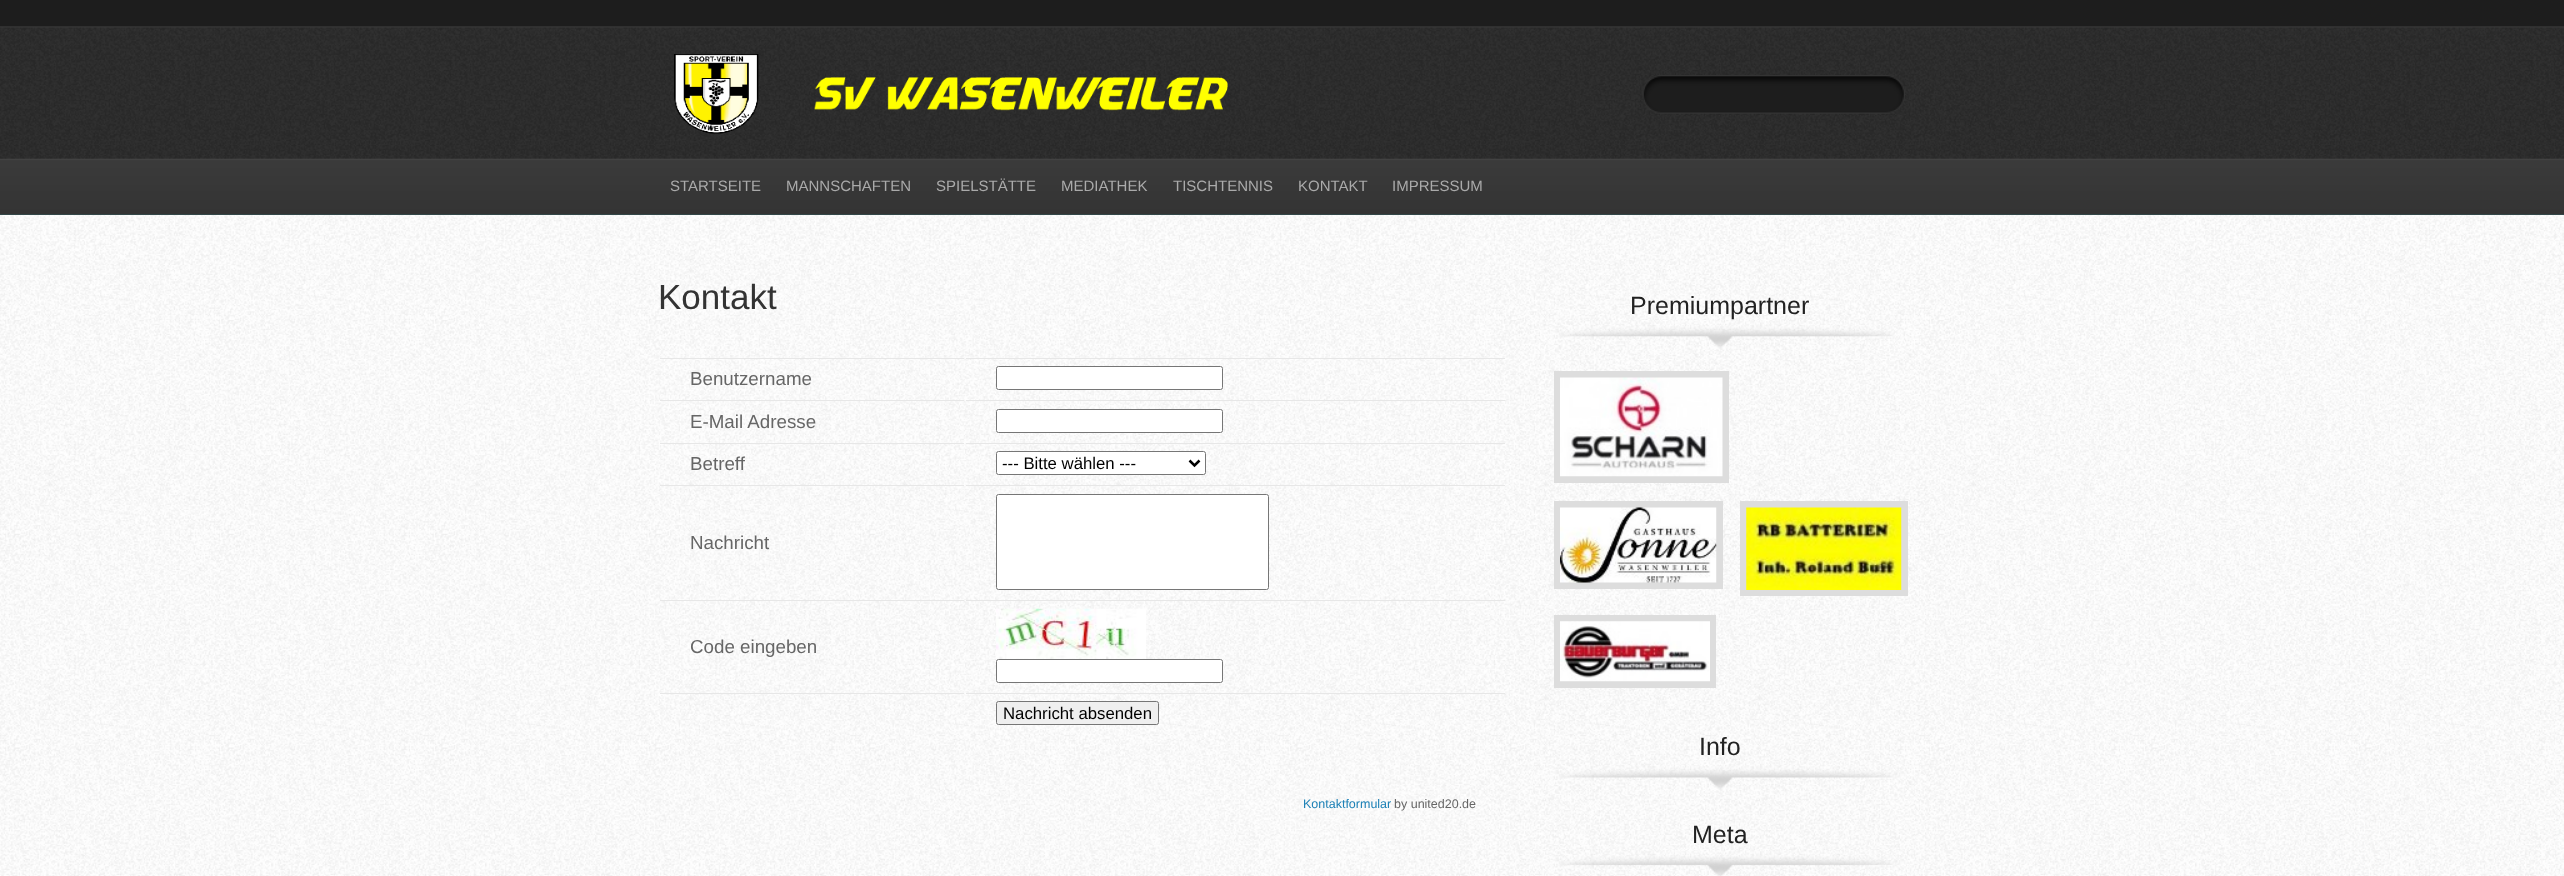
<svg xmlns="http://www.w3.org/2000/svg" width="2564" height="876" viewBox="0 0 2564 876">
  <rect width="100%" height="100%" fill="rgb(255,255,255)"/>
  <image x="0" y="215" width="2564" height="661" href="pic1.png"/>
  <image x="0" y="0" width="2564" height="215" href="pic2.png"/>
  <image x="674" y="54" width="554" height="80" href="pic3.png"/>
  <image x="1640" y="75" width="268" height="40" href="pic4.png"/>
  <g font-family="Liberation Sans" font-size="15" fill="rgb(170,170,170)">
    <text x="670" y="191">STARTSEITE</text>
    <text x="786" y="191">MANNSCHAFTEN</text>
    <text x="936" y="191">SPIELSTÄTTE</text>
    <text x="1061" y="191">MEDIATHEK</text>
    <text x="1173" y="191">TISCHTENNIS</text>
    <text x="1298" y="191">KONTAKT</text>
    <text x="1392" y="191">IMPRESSUM</text>
  </g>
  <text x="658" y="309" font-family="Liberation Sans" font-size="35" fill="rgb(51,51,51)">Kontakt</text>
  <rect x="660" y="358" width="304" height="1" fill="rgb(231,231,231)"/>
  <text x="690" y="385" font-family="Liberation Sans" font-size="18.75" fill="rgb(102,102,102)">Benutzername</text>
  <rect x="966" y="358" width="539" height="1" fill="rgb(231,231,231)"/>
  <rect x="996.5" y="366.5" width="226" height="23" rx="2" fill="rgb(255,255,255)" stroke="rgb(118,118,118)"/>
  <rect x="660" y="400" width="304" height="1" fill="rgb(231,231,231)"/>
  <text x="690" y="428" font-family="Liberation Sans" font-size="18.75" fill="rgb(102,102,102)">E-Mail Adresse</text>
  <rect x="966" y="400" width="539" height="1" fill="rgb(231,231,231)"/>
  <rect x="996.5" y="409.5" width="226" height="23" rx="2" fill="rgb(255,255,255)" stroke="rgb(118,118,118)"/>
  <rect x="660" y="443" width="304" height="1" fill="rgb(231,231,231)"/>
  <text x="690" y="470" font-family="Liberation Sans" font-size="18.75" fill="rgb(102,102,102)">Betreff</text>
  <rect x="966" y="443" width="539" height="1" fill="rgb(231,231,231)"/>
  <rect x="996.5" y="451.5" width="209" height="23" rx="2" fill="rgb(255,255,255)" stroke="rgb(118,118,118)"/>
  <path d="M1189.5 460.5L1194.5 465.5L1199.5 460.5" fill="none" stroke="rgb(0,0,0)" stroke-width="2.5"/>
  <text x="1002" y="469" font-family="Liberation Sans" font-size="16.75" fill="rgb(0,0,0)">--- Bitte wählen ---</text>
  <rect x="660" y="485" width="304" height="1" fill="rgb(231,231,231)"/>
  <text x="690" y="549" font-family="Liberation Sans" font-size="18.75" fill="rgb(102,102,102)">Nachricht</text>
  <rect x="966" y="485" width="539" height="1" fill="rgb(231,231,231)"/>
  <rect x="996.5" y="494.5" width="272" height="95" rx="2" fill="rgb(255,255,255)" stroke="rgb(118,118,118)"/>
  <rect x="660" y="600" width="304" height="1" fill="rgb(231,231,231)"/>
  <text x="690" y="653" font-family="Liberation Sans" font-size="18.75" fill="rgb(102,102,102)">Code eingeben</text>
  <rect x="966" y="600" width="539" height="1" fill="rgb(231,231,231)"/>
  <image x="996" y="608" width="150" height="51" href="pic5.png"/>
  <rect x="996.5" y="659.5" width="226" height="23" rx="2" fill="rgb(255,255,255)" stroke="rgb(118,118,118)"/>
  <rect x="660" y="693" width="304" height="1" fill="rgb(231,231,231)"/>
  <rect x="966" y="693" width="539" height="1" fill="rgb(231,231,231)"/>
  <rect x="996.5" y="701.5" width="162" height="23" rx="2" fill="rgb(239,239,239)" stroke="rgb(118,118,118)"/>
  <text x="1003" y="719" font-family="Liberation Sans" font-size="16.75" fill="rgb(0,0,0)">Nachricht absenden</text>
  <text x="1303" y="808" font-family="Liberation Sans" font-size="12.5" fill="rgb(29,129,182)">Kontaktformular</text>
  <text x="1394" y="808" font-family="Liberation Sans" font-size="12.5" fill="rgb(102,102,102)">by united20.de</text>
  <image x="1545" y="320" width="350" height="33" href="pic6.png"/>
  <text x="1630" y="314" font-family="Liberation Sans" font-size="25" fill="rgb(34,34,34)">Premiumpartner</text>
  <rect x="1554" y="371" width="175" height="112" fill="rgb(221,221,221)"/>
  <image x="1560" y="377" width="163" height="100" href="pic7.png"/>
  <rect x="1554" y="501" width="169" height="88" fill="rgb(221,221,221)"/>
  <image x="1560" y="507" width="157" height="76" href="pic8.png"/>
  <rect x="1740" y="501" width="168" height="95" fill="rgb(221,221,221)"/>
  <image x="1746" y="507" width="156" height="83" href="pic9.png"/>
  <rect x="1554" y="615" width="162" height="73" fill="rgb(221,221,221)"/>
  <image x="1560" y="621" width="150" height="61" href="pic10.png"/>
  <image x="1533" y="761" width="374" height="33" href="pic11.png"/>
  <text x="1699" y="755" font-family="Liberation Sans" font-size="25" fill="rgb(34,34,34)">Info</text>
  <image x="1533" y="849" width="374" height="27" href="pic12.png"/>
  <text x="1692" y="843" font-family="Liberation Sans" font-size="25" fill="rgb(34,34,34)">Meta</text>
</svg>
